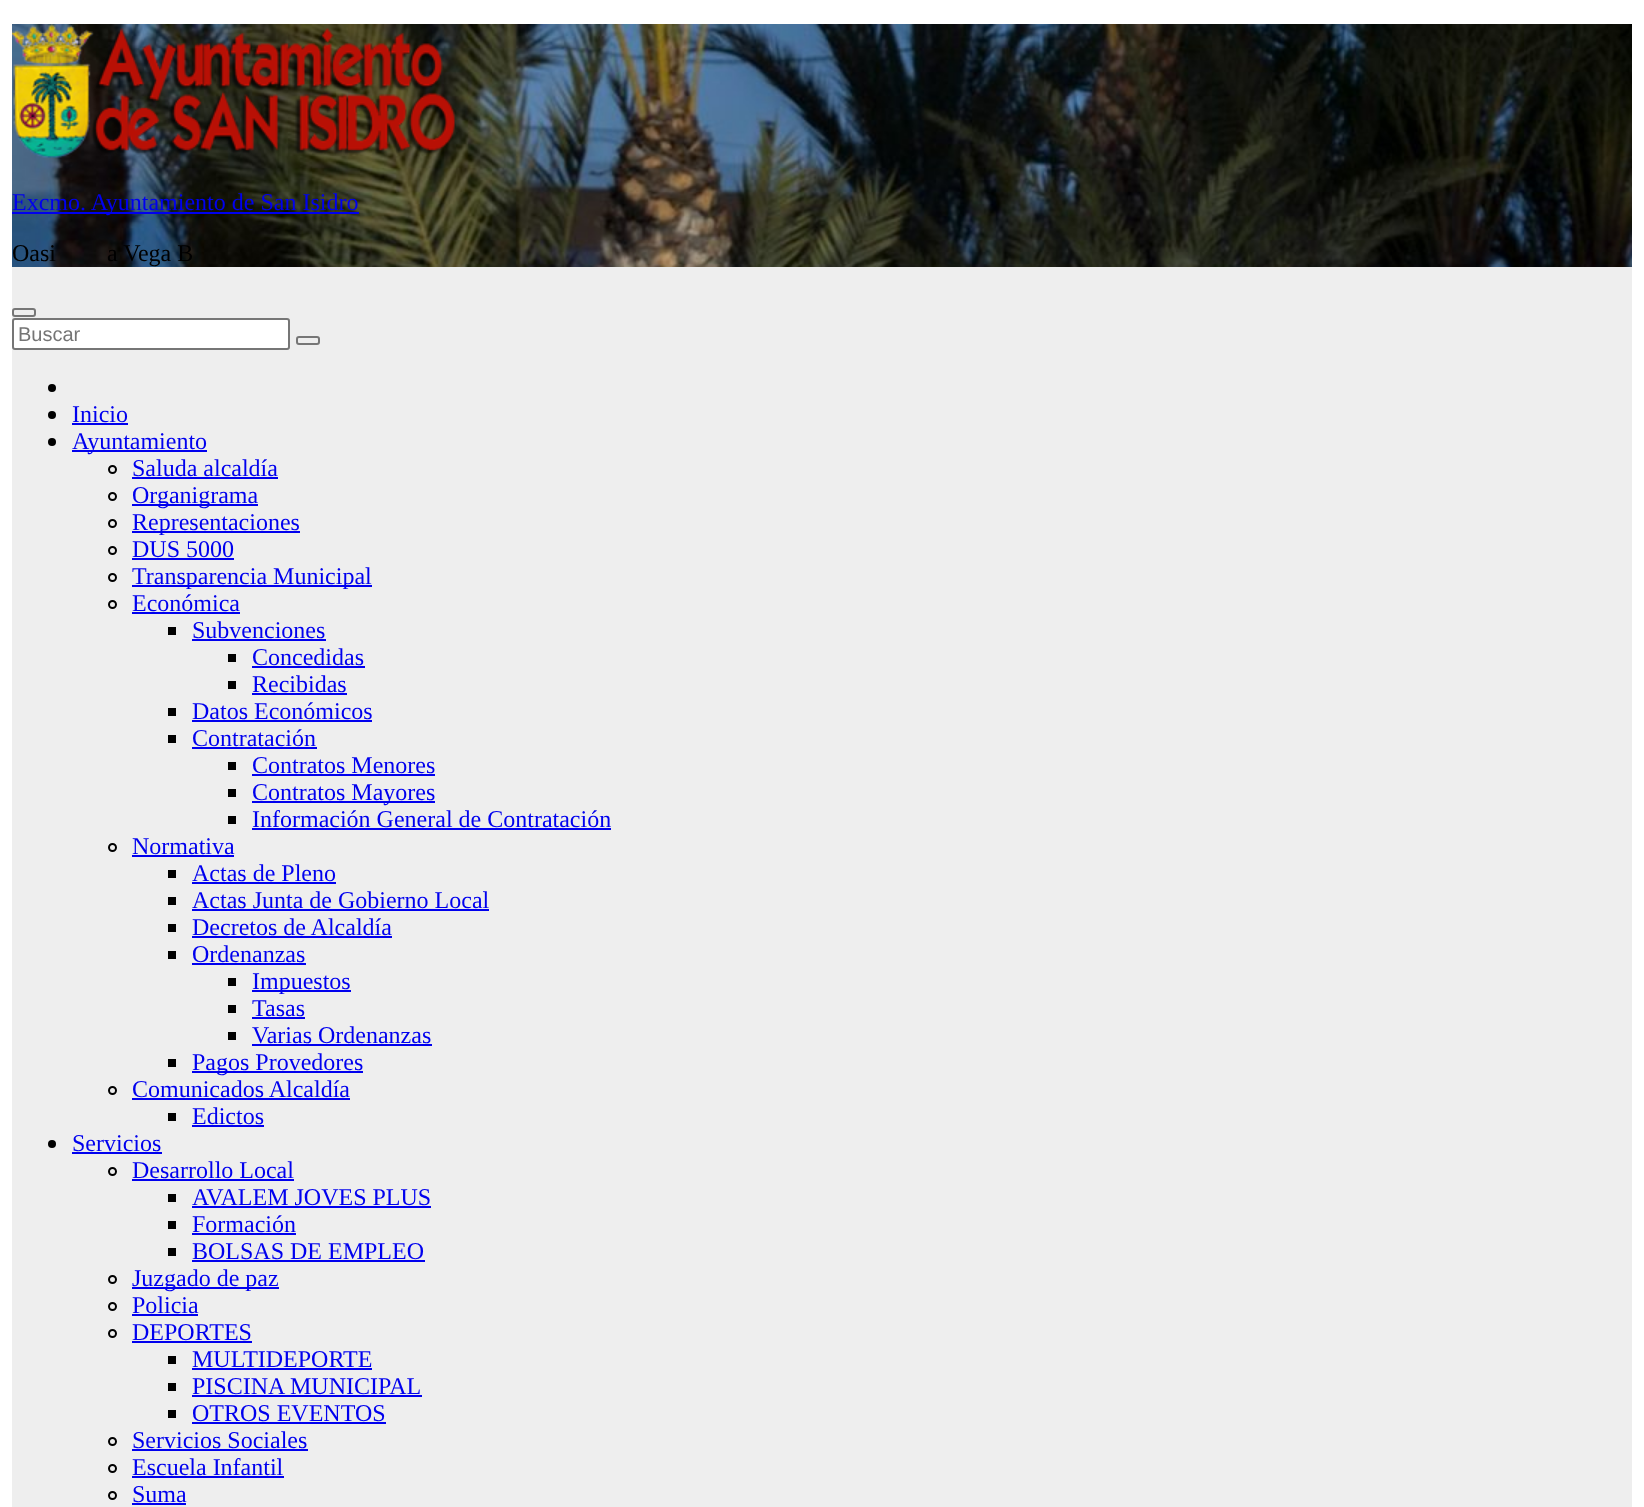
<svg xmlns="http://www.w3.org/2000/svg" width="1644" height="1507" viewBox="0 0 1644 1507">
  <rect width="100%" height="100%" fill="rgb(255,255,255)"/>
  <rect x="12" y="267" width="1620" height="1240" fill="rgb(238,238,238)"/>
  <image x="12" y="24" width="1620" height="243" href="pic1.png"/>
  <image x="12" y="24" width="443" height="134" href="pic2.png"/>
  <rect x="12" y="212" width="347" height="2" fill="rgb(0,0,238)"/>
  <text x="12" y="210" font-family="Liberation Serif" font-size="24" fill="rgb(0,0,238)">Excmo. Ayuntamiento de San Isidro</text>
  <g font-family="Liberation Serif" font-size="24" fill="rgb(0,0,0)">
    <text x="12" y="261">Oasi</text>
    <text x="107" y="261">a Vega B</text>
  </g>
  <rect x="13" y="309" width="22" height="7" rx="2" fill="none" stroke="rgb(118,118,118)" stroke-width="2"/>
  <rect x="13" y="319" width="276" height="30" rx="2" fill="rgb(255,255,255)" stroke="rgb(118,118,118)" stroke-width="2"/>
  <text x="18" y="341" font-family="Liberation Sans" font-size="20" fill="rgb(117,117,117)">Buscar</text>
  <rect x="297" y="337" width="22" height="7" rx="2" fill="none" stroke="rgb(118,118,118)" stroke-width="2"/>
  <circle cx="52" cy="388" r="4" fill="rgb(0,0,0)"/>
  <circle cx="52" cy="415" r="4" fill="rgb(0,0,0)"/>
  <text x="72" y="422" font-family="Liberation Serif" font-size="24" fill="rgb(0,0,238)">Inicio</text>
  <rect x="72" y="423" width="56" height="2" fill="rgb(0,0,238)"/>
  <circle cx="52" cy="442" r="4" fill="rgb(0,0,0)"/>
  <rect x="72" y="450" width="135" height="2" fill="rgb(0,0,238)"/>
  <text x="72" y="449" font-family="Liberation Serif" font-size="24" fill="rgb(0,0,238)">Ayuntamiento</text>
  <circle cx="112.5" cy="469.5" r="3.5" fill="none" stroke="rgb(0,0,0)" stroke-width="2"/>
  <text x="132" y="476" font-family="Liberation Serif" font-size="24" fill="rgb(0,0,238)">Saluda alcaldía</text>
  <rect x="132" y="477" width="146" height="2" fill="rgb(0,0,238)"/>
  <circle cx="112.5" cy="496.5" r="3.5" fill="none" stroke="rgb(0,0,0)" stroke-width="2"/>
  <rect x="132" y="504" width="126" height="2" fill="rgb(0,0,238)"/>
  <text x="132" y="503" font-family="Liberation Serif" font-size="24" fill="rgb(0,0,238)">Organigrama</text>
  <circle cx="112.5" cy="523.5" r="3.5" fill="none" stroke="rgb(0,0,0)" stroke-width="2"/>
  <rect x="132" y="531" width="168" height="2" fill="rgb(0,0,238)"/>
  <text x="132" y="530" font-family="Liberation Serif" font-size="24" fill="rgb(0,0,238)">Representaciones</text>
  <circle cx="112.5" cy="550.5" r="3.5" fill="none" stroke="rgb(0,0,0)" stroke-width="2"/>
  <text x="132" y="557" font-family="Liberation Serif" font-size="24" fill="rgb(0,0,238)">DUS 5000</text>
  <rect x="132" y="558" width="102" height="2" fill="rgb(0,0,238)"/>
  <circle cx="112.5" cy="577.5" r="3.5" fill="none" stroke="rgb(0,0,0)" stroke-width="2"/>
  <rect x="132" y="585" width="240" height="2" fill="rgb(0,0,238)"/>
  <text x="132" y="584" font-family="Liberation Serif" font-size="24" fill="rgb(0,0,238)">Transparencia Municipal</text>
  <circle cx="112.5" cy="604.5" r="3.5" fill="none" stroke="rgb(0,0,0)" stroke-width="2"/>
  <text x="132" y="611" font-family="Liberation Serif" font-size="24" fill="rgb(0,0,238)">Económica</text>
  <rect x="132" y="612" width="108" height="2" fill="rgb(0,0,238)"/>
  <rect x="168" y="627" width="8" height="8" fill="rgb(0,0,0)"/>
  <text x="192" y="638" font-family="Liberation Serif" font-size="24" fill="rgb(0,0,238)">Subvenciones</text>
  <rect x="192" y="639" width="134" height="2" fill="rgb(0,0,238)"/>
  <rect x="228" y="654" width="8" height="8" fill="rgb(0,0,0)"/>
  <text x="252" y="665" font-family="Liberation Serif" font-size="24" fill="rgb(0,0,238)">Concedidas</text>
  <rect x="252" y="666" width="113" height="2" fill="rgb(0,0,238)"/>
  <rect x="228" y="681" width="8" height="8" fill="rgb(0,0,0)"/>
  <text x="252" y="692" font-family="Liberation Serif" font-size="24" fill="rgb(0,0,238)">Recibidas</text>
  <rect x="252" y="693" width="95" height="2" fill="rgb(0,0,238)"/>
  <rect x="168" y="708" width="8" height="8" fill="rgb(0,0,0)"/>
  <text x="192" y="719" font-family="Liberation Serif" font-size="24" fill="rgb(0,0,238)">Datos Económicos</text>
  <rect x="192" y="720" width="180" height="2" fill="rgb(0,0,238)"/>
  <rect x="168" y="735" width="8" height="8" fill="rgb(0,0,0)"/>
  <text x="192" y="746" font-family="Liberation Serif" font-size="24" fill="rgb(0,0,238)">Contratación</text>
  <rect x="192" y="747" width="125" height="2" fill="rgb(0,0,238)"/>
  <rect x="228" y="762" width="8" height="8" fill="rgb(0,0,0)"/>
  <text x="252" y="773" font-family="Liberation Serif" font-size="24" fill="rgb(0,0,238)">Contratos Menores</text>
  <rect x="252" y="774" width="183" height="2" fill="rgb(0,0,238)"/>
  <rect x="228" y="789" width="8" height="8" fill="rgb(0,0,0)"/>
  <rect x="252" y="801" width="183" height="2" fill="rgb(0,0,238)"/>
  <text x="252" y="800" font-family="Liberation Serif" font-size="24" fill="rgb(0,0,238)">Contratos Mayores</text>
  <rect x="228" y="816" width="8" height="8" fill="rgb(0,0,0)"/>
  <text x="252" y="827" font-family="Liberation Serif" font-size="24" fill="rgb(0,0,238)">Información General de Contratación</text>
  <rect x="252" y="828" width="359" height="2" fill="rgb(0,0,238)"/>
  <circle cx="112.5" cy="847.5" r="3.5" fill="none" stroke="rgb(0,0,0)" stroke-width="2"/>
  <text x="132" y="854" font-family="Liberation Serif" font-size="24" fill="rgb(0,0,238)">Normativa</text>
  <rect x="132" y="855" width="102" height="2" fill="rgb(0,0,238)"/>
  <rect x="168" y="870" width="8" height="8" fill="rgb(0,0,0)"/>
  <text x="192" y="881" font-family="Liberation Serif" font-size="24" fill="rgb(0,0,238)">Actas de Pleno</text>
  <rect x="192" y="882" width="144" height="2" fill="rgb(0,0,238)"/>
  <rect x="168" y="897" width="8" height="8" fill="rgb(0,0,0)"/>
  <text x="192" y="908" font-family="Liberation Serif" font-size="24" fill="rgb(0,0,238)">Actas Junta de Gobierno Local</text>
  <rect x="192" y="909" width="297" height="2" fill="rgb(0,0,238)"/>
  <rect x="168" y="924" width="8" height="8" fill="rgb(0,0,0)"/>
  <text x="192" y="935" font-family="Liberation Serif" font-size="24" fill="rgb(0,0,238)">Decretos de Alcaldía</text>
  <rect x="192" y="936" width="200" height="2" fill="rgb(0,0,238)"/>
  <rect x="168" y="951" width="8" height="8" fill="rgb(0,0,0)"/>
  <text x="192" y="962" font-family="Liberation Serif" font-size="24" fill="rgb(0,0,238)">Ordenanzas</text>
  <rect x="192" y="963" width="114" height="2" fill="rgb(0,0,238)"/>
  <rect x="228" y="978" width="8" height="8" fill="rgb(0,0,0)"/>
  <rect x="252" y="990" width="99" height="2" fill="rgb(0,0,238)"/>
  <text x="252" y="989" font-family="Liberation Serif" font-size="24" fill="rgb(0,0,238)">Impuestos</text>
  <rect x="228" y="1005" width="8" height="8" fill="rgb(0,0,0)"/>
  <text x="252" y="1016" font-family="Liberation Serif" font-size="24" fill="rgb(0,0,238)">Tasas</text>
  <rect x="252" y="1017" width="53" height="2" fill="rgb(0,0,238)"/>
  <rect x="228" y="1032" width="8" height="8" fill="rgb(0,0,0)"/>
  <text x="252" y="1043" font-family="Liberation Serif" font-size="24" fill="rgb(0,0,238)">Varias Ordenanzas</text>
  <rect x="252" y="1044" width="180" height="2" fill="rgb(0,0,238)"/>
  <rect x="168" y="1059" width="8" height="8" fill="rgb(0,0,0)"/>
  <rect x="192" y="1071" width="171" height="2" fill="rgb(0,0,238)"/>
  <text x="192" y="1070" font-family="Liberation Serif" font-size="24" fill="rgb(0,0,238)">Pagos Provedores</text>
  <circle cx="112.5" cy="1090.5" r="3.5" fill="none" stroke="rgb(0,0,0)" stroke-width="2"/>
  <text x="132" y="1097" font-family="Liberation Serif" font-size="24" fill="rgb(0,0,238)">Comunicados Alcaldía</text>
  <rect x="132" y="1098" width="218" height="2" fill="rgb(0,0,238)"/>
  <rect x="168" y="1113" width="8" height="8" fill="rgb(0,0,0)"/>
  <text x="192" y="1124" font-family="Liberation Serif" font-size="24" fill="rgb(0,0,238)">Edictos</text>
  <rect x="192" y="1125" width="72" height="2" fill="rgb(0,0,238)"/>
  <circle cx="52" cy="1144" r="4" fill="rgb(0,0,0)"/>
  <text x="72" y="1151" font-family="Liberation Serif" font-size="24" fill="rgb(0,0,238)">Servicios</text>
  <rect x="72" y="1152" width="90" height="2" fill="rgb(0,0,238)"/>
  <circle cx="112.5" cy="1171.5" r="3.5" fill="none" stroke="rgb(0,0,0)" stroke-width="2"/>
  <text x="132" y="1178" font-family="Liberation Serif" font-size="24" fill="rgb(0,0,238)">Desarrollo Local</text>
  <rect x="132" y="1179" width="162" height="2" fill="rgb(0,0,238)"/>
  <rect x="168" y="1194" width="8" height="8" fill="rgb(0,0,0)"/>
  <text x="192" y="1205" font-family="Liberation Serif" font-size="24" fill="rgb(0,0,238)">AVALEM JOVES PLUS</text>
  <rect x="192" y="1206" width="239" height="2" fill="rgb(0,0,238)"/>
  <rect x="168" y="1221" width="8" height="8" fill="rgb(0,0,0)"/>
  <text x="192" y="1232" font-family="Liberation Serif" font-size="24" fill="rgb(0,0,238)">Formación</text>
  <rect x="192" y="1233" width="104" height="2" fill="rgb(0,0,238)"/>
  <rect x="168" y="1248" width="8" height="8" fill="rgb(0,0,0)"/>
  <text x="192" y="1259" font-family="Liberation Serif" font-size="24" fill="rgb(0,0,238)">BOLSAS DE EMPLEO</text>
  <rect x="192" y="1260" width="233" height="2" fill="rgb(0,0,238)"/>
  <circle cx="112.5" cy="1279.5" r="3.5" fill="none" stroke="rgb(0,0,0)" stroke-width="2"/>
  <rect x="132" y="1287" width="147" height="2" fill="rgb(0,0,238)"/>
  <text x="132" y="1286" font-family="Liberation Serif" font-size="24" fill="rgb(0,0,238)">Juzgado de paz</text>
  <circle cx="112.5" cy="1306.5" r="3.5" fill="none" stroke="rgb(0,0,0)" stroke-width="2"/>
  <text x="132" y="1313" font-family="Liberation Serif" font-size="24" fill="rgb(0,0,238)">Policia</text>
  <rect x="132" y="1314" width="66" height="2" fill="rgb(0,0,238)"/>
  <circle cx="112.5" cy="1333.5" r="3.5" fill="none" stroke="rgb(0,0,0)" stroke-width="2"/>
  <text x="132" y="1340" font-family="Liberation Serif" font-size="24" fill="rgb(0,0,238)">DEPORTES</text>
  <rect x="132" y="1341" width="120" height="2" fill="rgb(0,0,238)"/>
  <rect x="168" y="1356" width="8" height="8" fill="rgb(0,0,0)"/>
  <text x="192" y="1367" font-family="Liberation Serif" font-size="24" fill="rgb(0,0,238)">MULTIDEPORTE</text>
  <rect x="192" y="1368" width="180" height="2" fill="rgb(0,0,238)"/>
  <rect x="168" y="1383" width="8" height="8" fill="rgb(0,0,0)"/>
  <text x="192" y="1394" font-family="Liberation Serif" font-size="24" fill="rgb(0,0,238)">PISCINA MUNICIPAL</text>
  <rect x="192" y="1395" width="230" height="2" fill="rgb(0,0,238)"/>
  <rect x="168" y="1410" width="8" height="8" fill="rgb(0,0,0)"/>
  <text x="192" y="1421" font-family="Liberation Serif" font-size="24" fill="rgb(0,0,238)">OTROS EVENTOS</text>
  <rect x="192" y="1422" width="194" height="2" fill="rgb(0,0,238)"/>
  <circle cx="112.5" cy="1441.5" r="3.5" fill="none" stroke="rgb(0,0,0)" stroke-width="2"/>
  <text x="132" y="1448" font-family="Liberation Serif" font-size="24" fill="rgb(0,0,238)">Servicios Sociales</text>
  <rect x="132" y="1449" width="176" height="2" fill="rgb(0,0,238)"/>
  <circle cx="112.5" cy="1468.5" r="3.5" fill="none" stroke="rgb(0,0,0)" stroke-width="2"/>
  <text x="132" y="1475" font-family="Liberation Serif" font-size="24" fill="rgb(0,0,238)">Escuela Infantil</text>
  <rect x="132" y="1476" width="152" height="2" fill="rgb(0,0,238)"/>
  <circle cx="112.5" cy="1495.5" r="3.5" fill="none" stroke="rgb(0,0,0)" stroke-width="2"/>
  <text x="132" y="1502" font-family="Liberation Serif" font-size="24" fill="rgb(0,0,238)">Suma</text>
  <rect x="132" y="1503" width="54" height="2" fill="rgb(0,0,238)"/>
</svg>
